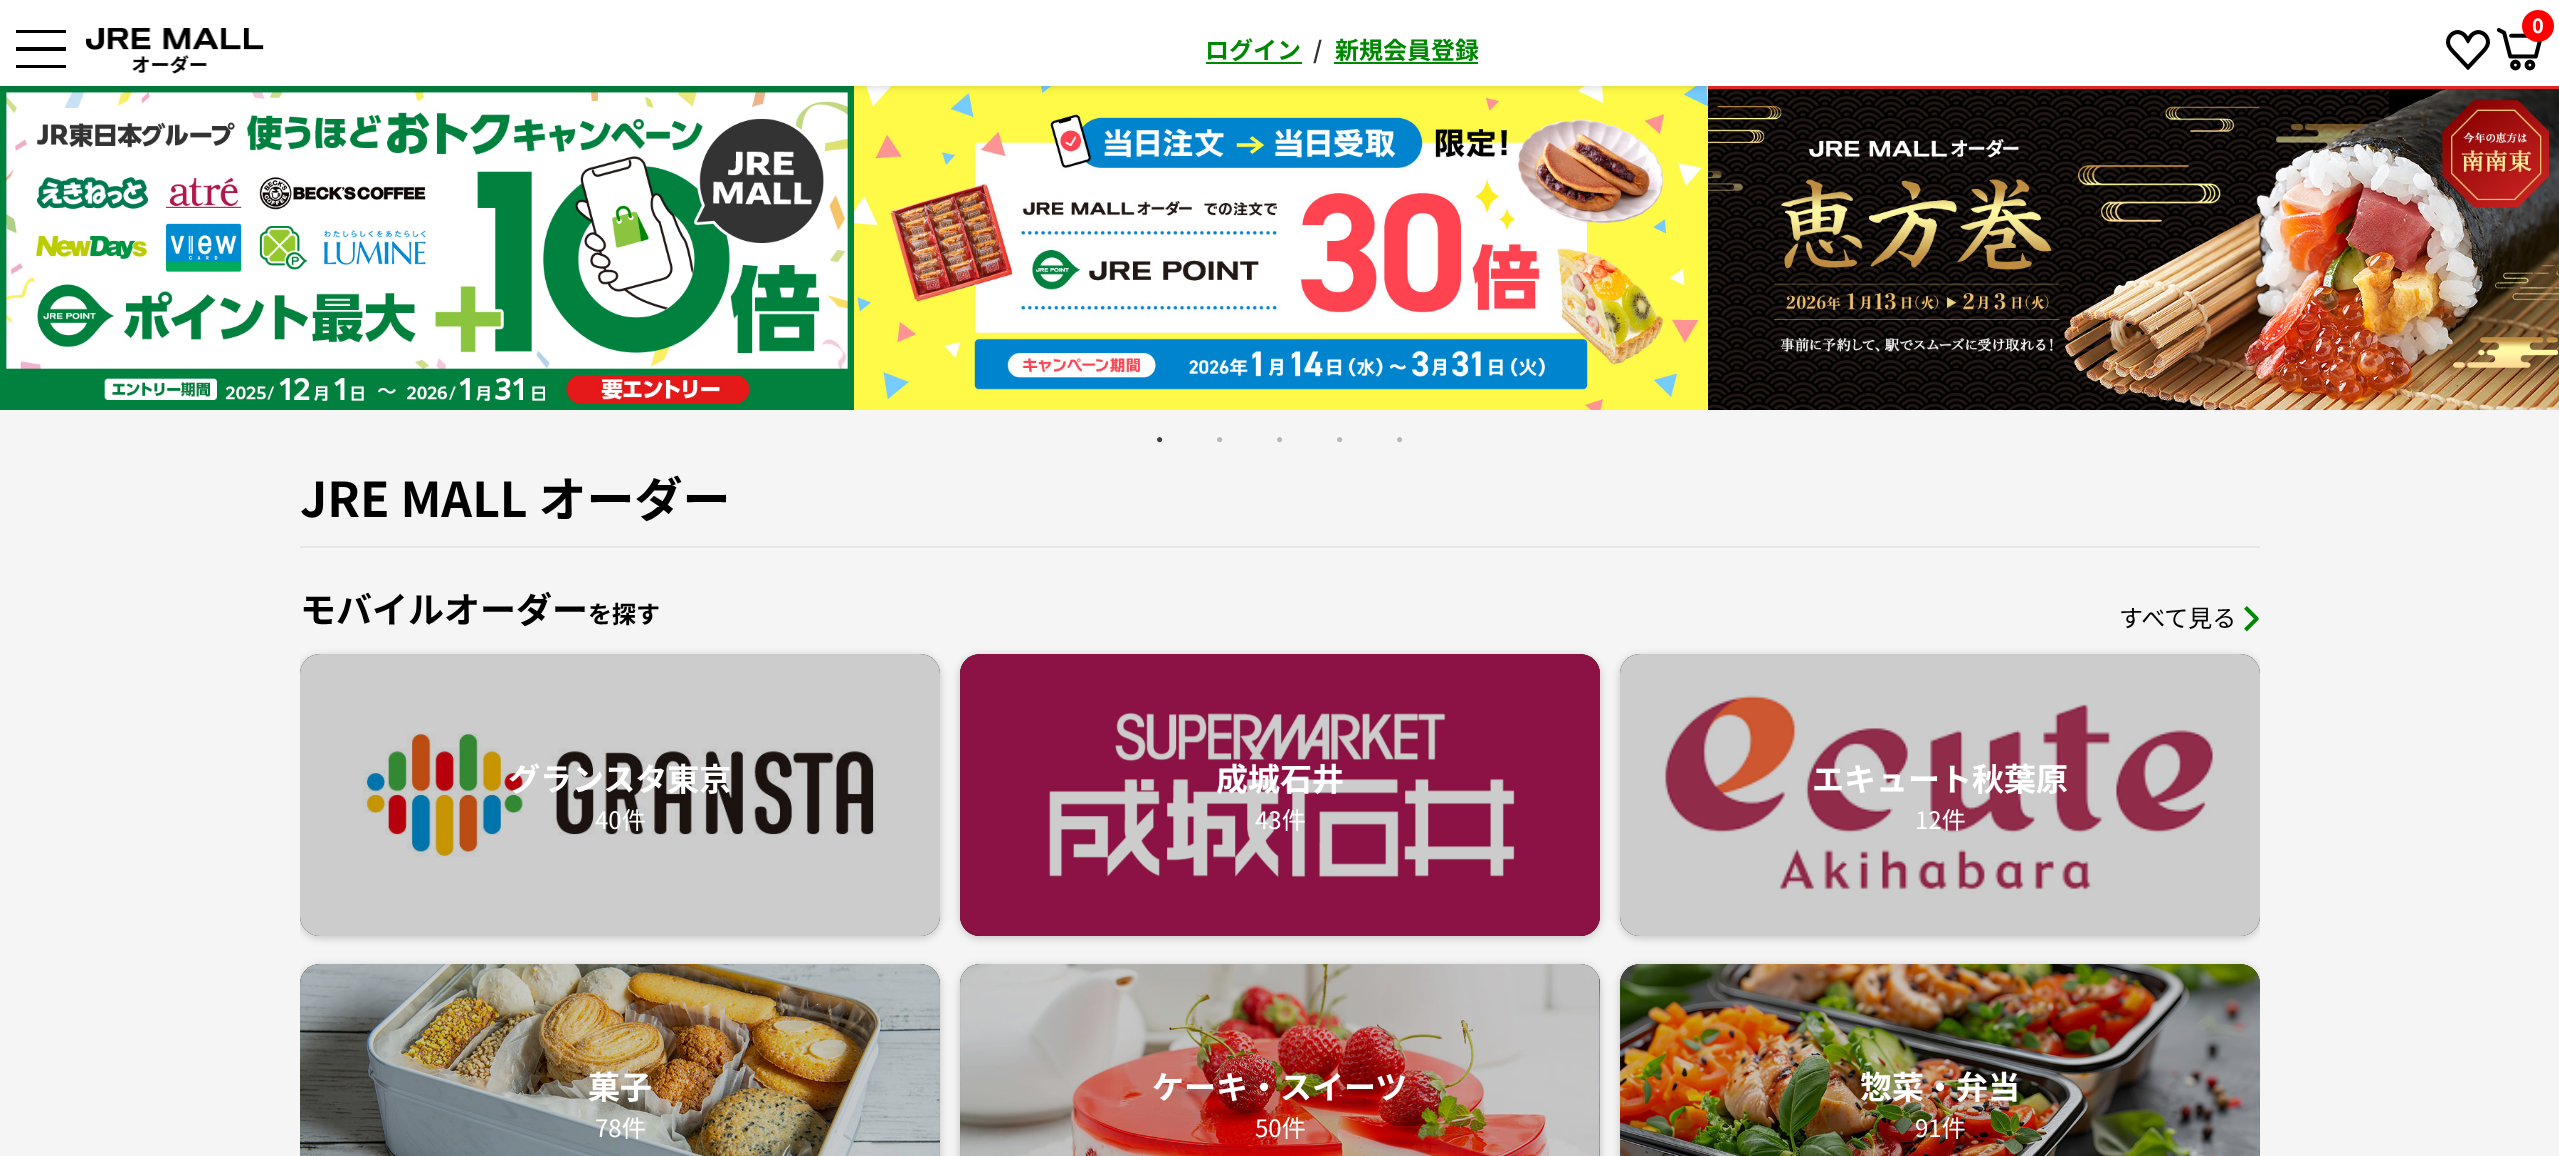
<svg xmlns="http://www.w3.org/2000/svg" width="2559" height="1156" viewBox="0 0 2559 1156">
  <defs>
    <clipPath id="clip1"><rect x="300" y="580" width="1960" height="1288"/></clipPath>
  </defs>
  <rect width="100%" height="100%" fill="rgb(245,245,245)"/>
  <image x="0" y="86" width="854" height="324" href="pic4.png"/>
  <image x="854" y="86" width="854" height="324" href="pic5.png"/>
  <image x="1708" y="86" width="851" height="324" href="pic6.png"/>
  <rect x="0" y="0" width="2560" height="86" fill="rgba(0,0,0,0.2)" filter="blur(4px)"/>
  <rect x="0" y="0" width="2559" height="86" fill="rgb(255,255,255)"/>
  <path d="M16 33V30H66V33ZM66 47V51H16V47ZM16 65H66V68H16Z" fill="rgb(0,0,0)"/>
  <image x="86" y="28" width="178" height="46" href="pic1.png"/>
  <image x="2496" y="28" width="46" height="43" href="pic2.png"/>
  <circle cx="2538" cy="26" r="16" fill="rgb(255,0,0)"/>
  <text x="2532" y="33" font-family="Noto Sans JP" font-size="20" font-weight="bold" fill="rgb(255,255,255)">0</text>
  <text x="1205" y="59" font-family="Noto Sans JP" font-size="24" font-weight="bold" fill="rgb(0,136,3)">ログイン</text>
  <rect x="1206" y="62" width="96" height="2" fill="rgb(0,136,3)"/>
  <text x="1313" y="59" font-family="Noto Sans JP" font-size="24" font-weight="bold" fill="rgb(51,51,51)">/</text>
  <text x="1335" y="59" font-family="Noto Sans JP" font-size="24" font-weight="bold" fill="rgb(0,136,3)">新規会員登録</text>
  <rect x="1334" y="62" width="144" height="2" fill="rgb(0,136,3)"/>
  <image x="2446" y="30" width="44" height="40" href="pic3.png"/>
  <text x="1156" y="443" font-family="Liberation Serif" font-size="12" fill="rgb(61,61,61)">●</text>
  <g font-family="Liberation Serif" font-size="12" fill="rgb(184,184,184)">
    <text x="1216" y="443">●</text>
    <text x="1276" y="443">●</text>
    <text x="1336" y="443">●</text>
    <text x="1396" y="443">●</text>
  </g>
  <rect x="300" y="546" width="1960" height="2" fill="rgb(231,231,231)"/>
  <text x="300" y="517" font-family="Noto Sans JP" font-size="48" font-weight="bold" fill="rgb(0,0,0)">JRE MALL オーダー</text>
  <text x="300" y="623" font-family="Noto Sans JP" font-size="36" font-weight="bold" fill="rgb(0,0,0)">モバイルオーダー</text>
  <text x="588" y="623" font-family="Noto Sans JP" font-size="24" font-weight="bold" fill="rgb(0,0,0)">を探す</text>
  <text x="2119" y="627" font-family="Noto Sans JP" font-size="24" fill="rgb(0,0,0)">すべて見る</text>
  <image x="2244" y="606" width="15" height="26" href="pic7.png"/>
  <g clip-path="url(#clip1)">
    <rect x="300" y="656" width="640" height="282" rx="20" fill="rgba(0,0,0,0.2)" filter="blur(4px)"/>
  </g>
  <rect x="300" y="654" width="640" height="282" rx="20" fill="rgb(0,0,0)"/>
  <image x="300" y="654" width="640" height="282" href="pic8.png"/>
  <rect x="300" y="654" width="640" height="282" rx="20" fill="rgba(0,0,0,0.2)"/>
  <text x="508" y="791" font-family="Noto Sans JP" font-size="32" font-weight="bold" fill="rgb(255,255,255)">グランスタ東京</text>
  <text x="595" y="829" font-family="Noto Sans JP" font-size="24" fill="rgb(255,255,255)">40件</text>
  <rect x="960" y="656" width="640" height="282" rx="20" fill="rgba(0,0,0,0.2)" filter="blur(4px)"/>
  <rect x="960" y="654" width="640" height="282" rx="20" fill="rgb(0,0,0)"/>
  <image x="960" y="654" width="640" height="282" href="pic9.png"/>
  <rect x="960" y="654" width="640" height="282" rx="20" fill="rgba(0,0,0,0.2)"/>
  <text x="1216" y="791" font-family="Noto Sans JP" font-size="32" font-weight="bold" fill="rgb(255,255,255)">成城石井</text>
  <text x="1255" y="829" font-family="Noto Sans JP" font-size="24" fill="rgb(255,255,255)">43件</text>
  <g clip-path="url(#clip1)">
    <rect x="1620" y="656" width="640" height="282" rx="20" fill="rgba(0,0,0,0.2)" filter="blur(4px)"/>
  </g>
  <rect x="1620" y="654" width="640" height="282" rx="20" fill="rgb(0,0,0)"/>
  <image x="1620" y="654" width="640" height="282" href="pic10.png"/>
  <rect x="1620" y="654" width="640" height="282" rx="20" fill="rgba(0,0,0,0.2)"/>
  <text x="1812" y="791" font-family="Noto Sans JP" font-size="32" font-weight="bold" fill="rgb(255,255,255)">エキュート秋葉原</text>
  <text x="1915" y="829" font-family="Noto Sans JP" font-size="24" fill="rgb(255,255,255)">12件</text>
  <g clip-path="url(#clip1)">
    <rect x="300" y="966" width="640" height="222" rx="20" fill="rgba(0,0,0,0.2)" filter="blur(4px)"/>
  </g>
  <rect x="300" y="964" width="640" height="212" rx="20" fill="rgb(0,0,0)"/>
  <image x="300" y="964" width="640" height="192" href="pic11.png"/>
  <rect x="300" y="964" width="640" height="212" rx="20" fill="rgba(0,0,0,0.2)"/>
  <text x="588" y="1099" font-family="Noto Sans JP" font-size="32" font-weight="bold" fill="rgb(255,255,255)">菓子</text>
  <text x="595" y="1137" font-family="Noto Sans JP" font-size="24" fill="rgb(255,255,255)">78件</text>
  <rect x="960" y="966" width="640" height="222" rx="20" fill="rgba(0,0,0,0.2)" filter="blur(4px)"/>
  <rect x="960" y="964" width="640" height="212" rx="20" fill="rgb(0,0,0)"/>
  <image x="960" y="964" width="640" height="192" href="pic12.png"/>
  <rect x="960" y="964" width="640" height="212" rx="20" fill="rgba(0,0,0,0.2)"/>
  <text x="1152" y="1099" font-family="Noto Sans JP" font-size="32" font-weight="bold" fill="rgb(255,255,255)">ケーキ・スイーツ</text>
  <text x="1255" y="1137" font-family="Noto Sans JP" font-size="24" fill="rgb(255,255,255)">50件</text>
  <g clip-path="url(#clip1)">
    <rect x="1620" y="966" width="640" height="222" rx="20" fill="rgba(0,0,0,0.2)" filter="blur(4px)"/>
  </g>
  <rect x="1620" y="964" width="640" height="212" rx="20" fill="rgb(0,0,0)"/>
  <image x="1620" y="964" width="640" height="192" href="pic13.png"/>
  <rect x="1620" y="964" width="640" height="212" rx="20" fill="rgba(0,0,0,0.2)"/>
  <text x="1860" y="1099" font-family="Noto Sans JP" font-size="32" font-weight="bold" fill="rgb(255,255,255)">惣菜・弁当</text>
  <text x="1915" y="1137" font-family="Noto Sans JP" font-size="24" fill="rgb(255,255,255)">91件</text>
</svg>
